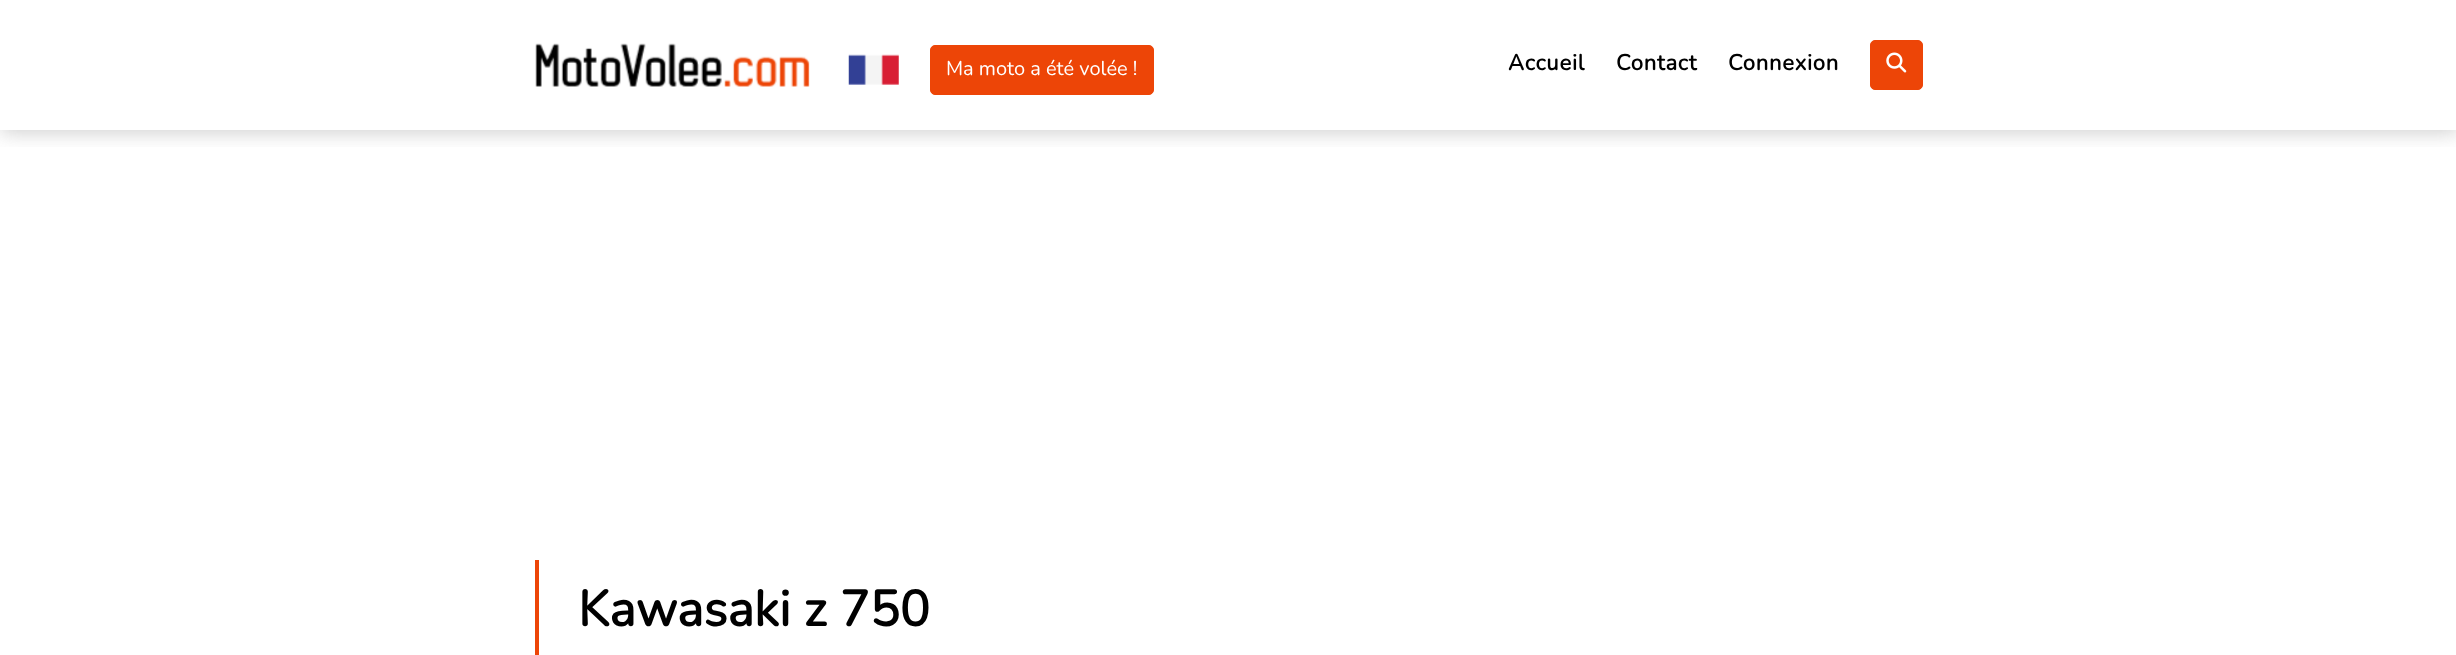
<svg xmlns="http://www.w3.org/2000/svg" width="2456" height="655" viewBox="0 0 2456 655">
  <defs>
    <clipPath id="clip1"><rect x="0" y="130" width="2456" height="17"/></clipPath>
  </defs>
  <rect width="100%" height="100%" fill="rgb(255,255,255)"/>
  <g clip-path="url(#clip1)">
    <rect x="1" y="3" width="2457" height="130" fill="rgba(99,99,99,0.3)" filter="blur(9.5px)"/>
  </g>
  <image x="535" y="43" width="275" height="44" href="pic1.png"/>
  <image x="848" y="54" width="51" height="31" href="pic2.png"/>
  <rect x="930.5" y="45.5" width="223" height="49" rx="4.5" fill="rgb(237,69,7)" stroke="rgb(237,69,7)"/>
  <text x="946" y="75" font-family="Nunito" font-size="20" font-weight="200" fill="rgb(255,255,255)">Ma moto a été volée !</text>
  <g font-family="Nunito" font-size="22" font-weight="bold" letter-spacing="0.75" fill="rgb(0,0,0)">
    <text x="1508" y="70">Accueil</text>
    <text x="1616" y="70">Contact</text>
    <text x="1728" y="70">Connexion</text>
  </g>
  <rect x="1870.5" y="40.5" width="52" height="49" rx="4.5" fill="rgb(237,69,7)" stroke="rgb(237,69,7)"/>
  <image x="1886" y="52" width="21" height="21" href="pic3.png"/>
  <rect x="535" y="560" width="4" height="95" fill="rgb(237,69,7)"/>
  <text x="578" y="626" font-family="Nunito" font-size="50" font-weight="bold" fill="rgb(0,0,0)">Kawasaki z 750</text>
</svg>
